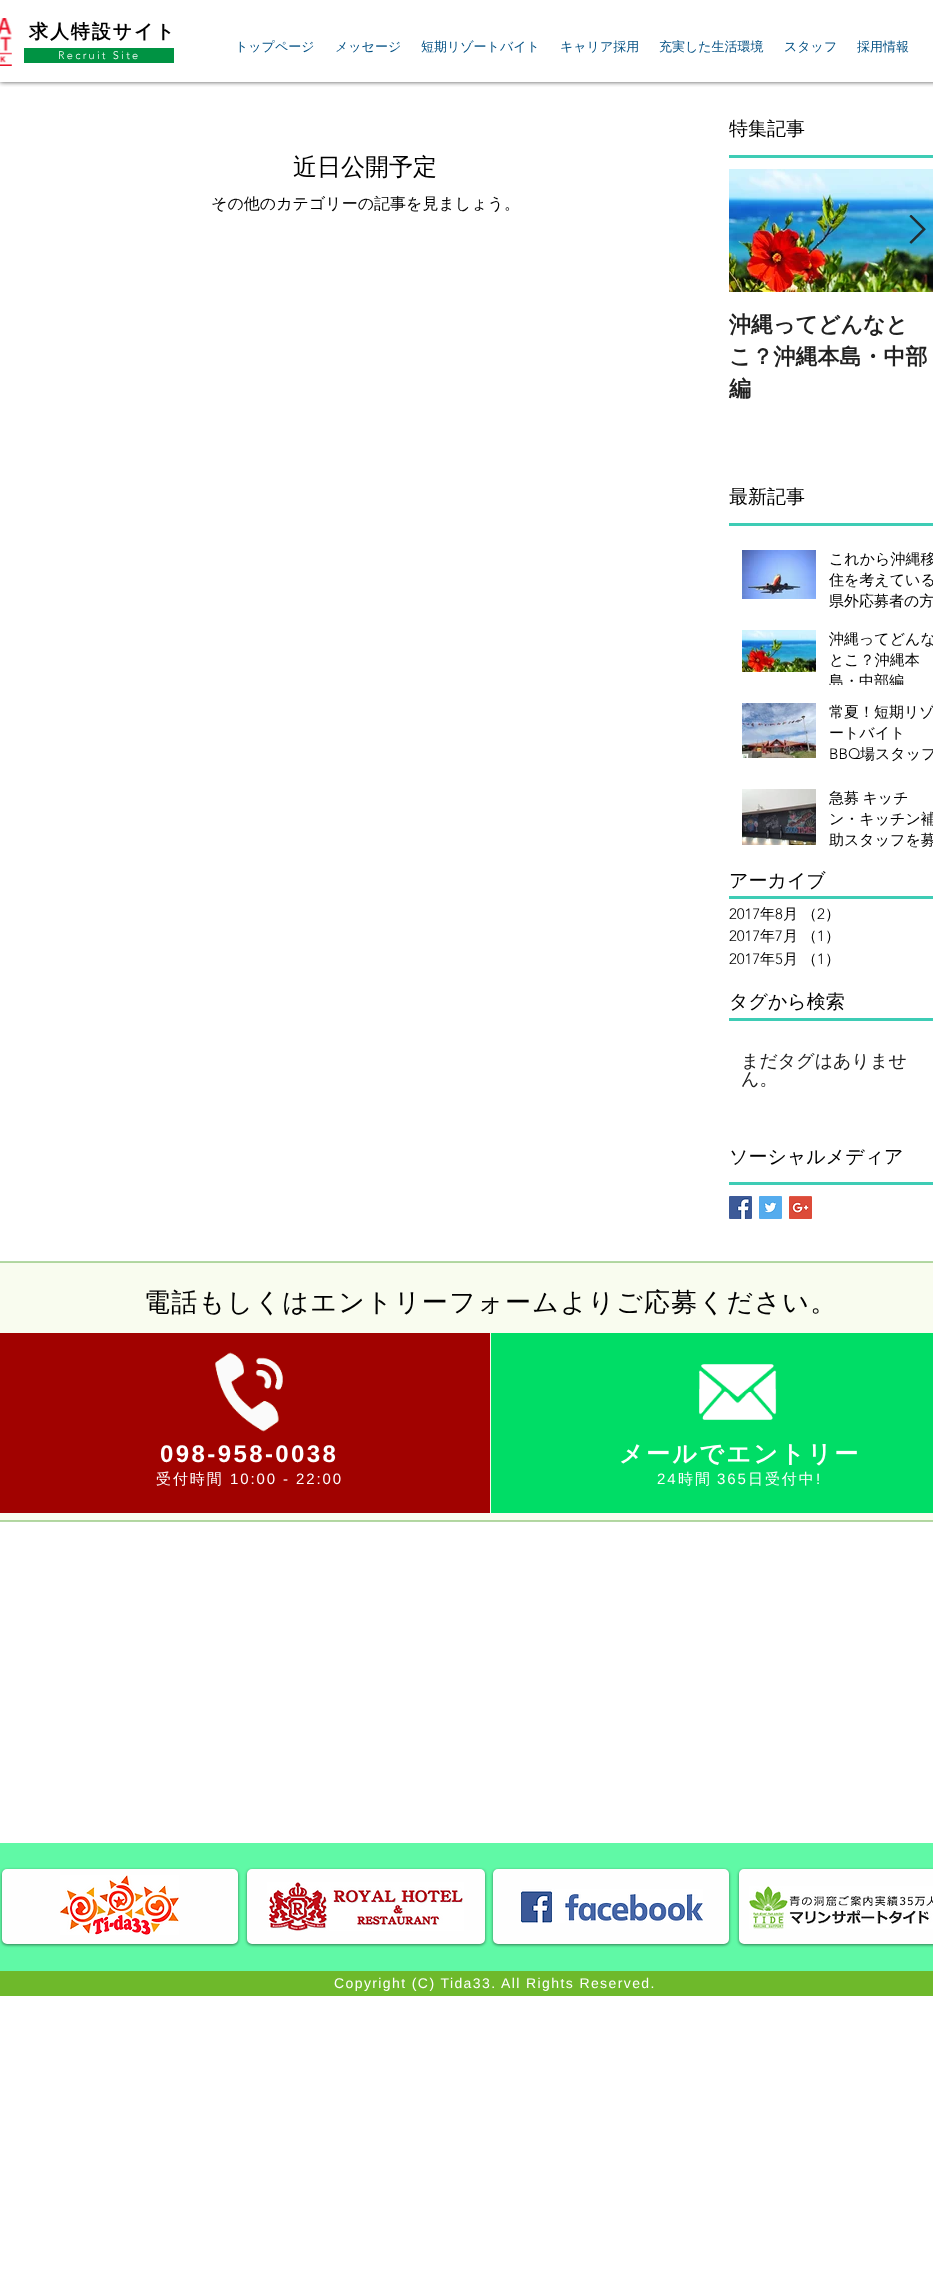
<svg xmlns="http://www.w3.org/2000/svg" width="933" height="2282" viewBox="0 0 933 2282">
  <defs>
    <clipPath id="clip1"><rect x="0" y="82" width="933" height="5"/></clipPath>
    <clipPath id="clip2"><rect x="829" y="629" width="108" height="56"/></clipPath>
  </defs>
  <rect width="100%" height="100%" fill="rgb(255,255,255)"/>
  <g clip-path="url(#clip1)">
    <rect x="0" y="0" width="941" height="82" fill="rgba(0,0,0,0.7)" filter="blur(2.5px)"/>
  </g>
  <image x="0" y="18" width="12" height="48" href="pic1.png"/>
  <text x="29" y="38" font-family="WenQuanYi Zen Hei" font-size="19" font-weight="bold" letter-spacing="1.9" fill="rgb(0,0,0)">求人特設サイト</text>
  <rect x="24" y="48" width="150" height="15" fill="rgb(0,147,67)"/>
  <text x="58" y="59" font-family="'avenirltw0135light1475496'" font-size="11" font-weight="300" letter-spacing="2.25" fill="rgb(255,255,255)">Recruit Site</text>
  <g font-family="WenQuanYi Zen Hei" font-size="13" font-weight="500" fill="rgb(4,81,132)">
    <text x="235" y="51">トップページ</text>
    <text x="335" y="51">メッセージ</text>
    <text x="421" y="51">短期リゾートバイト</text>
    <text x="560" y="51">キャリア採用</text>
    <text x="659" y="51">充実した生活環境</text>
    <text x="784" y="51">スタッフ</text>
    <text x="857" y="51">採用情報</text>
  </g>
  <text x="729" y="135" font-family="WenQuanYi Zen Hei" font-size="19" font-weight="500" fill="rgb(0,0,0)">特集記事</text>
  <text x="293" y="175" font-family="WenQuanYi Zen Hei" font-size="24" font-weight="500" fill="rgb(0,0,0)">近日公開予定</text>
  <text x="211" y="209" font-family="WenQuanYi Zen Hei" font-size="16" font-weight="500" fill="rgb(0,0,0)">その他のカテゴリーの記事を見ましょう。</text>
  <rect x="729" y="155" width="204" height="3" fill="rgb(62,204,181)"/>
  <image x="729" y="169" width="204" height="123" href="pic3.png"/>
  <image x="909" y="215" width="17" height="29" href="pic2.png"/>
  <g font-family="WenQuanYi Zen Hei" font-size="22" font-weight="bold" fill="rgb(33,33,33)">
    <text>
      <tspan x="729" y="332">沖縄ってどんなと</tspan>
      <tspan x="729" y="364">こ？沖縄本島・中部</tspan>
      <tspan x="729" y="396">編</tspan>
    </text>
  </g>
  <text x="729" y="503" font-family="WenQuanYi Zen Hei" font-size="19" font-weight="500" fill="rgb(0,0,0)">最新記事</text>
  <rect x="729" y="523" width="204" height="3" fill="rgb(62,204,181)"/>
  <image x="742" y="550" width="74" height="49" href="pic4.png"/>
  <g font-family="WenQuanYi Zen Hei" font-size="15" font-weight="500" fill="rgb(0,0,0)">
    <text>
      <tspan x="829" y="564">これから沖縄移</tspan>
      <tspan x="829" y="585">住を考えている</tspan>
      <tspan x="829" y="606">県外応募者の方</tspan>
    </text>
  </g>
  <image x="742" y="630" width="74" height="42" href="pic5.png"/>
  <g font-family="WenQuanYi Zen Hei" font-size="15" font-weight="500" fill="rgb(0,0,0)">
    <text>
      <tspan x="829" y="644">沖縄ってどんな</tspan>
      <tspan x="829" y="665">とこ？沖縄本</tspan>
    </text>
  </g>
  <g clip-path="url(#clip2)">
    <text x="829" y="686" font-family="WenQuanYi Zen Hei" font-size="15" font-weight="500" fill="rgb(0,0,0)">島・中部編</text>
  </g>
  <image x="742" y="703" width="74" height="55" href="pic6.png"/>
  <g font-family="WenQuanYi Zen Hei" font-size="15" font-weight="500" fill="rgb(0,0,0)">
    <text>
      <tspan x="829" y="717">常夏！短期リゾ</tspan>
      <tspan x="829" y="738">ートバイト</tspan>
    </text>
  </g>
  <text x="829" y="759" font-family="'avenirltw0135light1475496'" font-size="15" font-weight="300" fill="rgb(0,0,0)">BBQ</text>
  <text x="860" y="759" font-family="WenQuanYi Zen Hei" font-size="15" font-weight="500" fill="rgb(0,0,0)">場スタッフ</text>
  <image x="742" y="789" width="74" height="56" href="pic7.png"/>
  <g font-family="WenQuanYi Zen Hei" font-size="15" font-weight="500" fill="rgb(0,0,0)">
    <text>
      <tspan x="829" y="803" word-spacing="-1">急募 キッチ</tspan>
      <tspan x="829" y="824">ン・キッチン補</tspan>
      <tspan x="829" y="845">助スタッフを募</tspan>
    </text>
  </g>
  <text x="729" y="887" font-family="WenQuanYi Zen Hei" font-size="19" font-weight="500" fill="rgb(0,0,0)">アーカイブ</text>
  <rect x="729" y="896" width="204" height="3" fill="rgb(62,204,181)"/>
  <text x="729" y="919" font-family="'avenirltw0135light1475496'" font-size="15" font-weight="300" fill="rgb(0,0,0)">2017</text>
  <text x="760" y="919" font-family="WenQuanYi Zen Hei" font-size="15" font-weight="500" fill="rgb(0,0,0)">年</text>
  <text x="775" y="919" font-family="'avenirltw0135light1475496'" font-size="15" font-weight="300" fill="rgb(0,0,0)">8</text>
  <g font-family="WenQuanYi Zen Hei" font-size="15" font-weight="500" fill="rgb(0,0,0)">
    <text x="783" y="919">月</text>
    <text x="802" y="919">（</text>
  </g>
  <text x="817" y="919" font-family="'avenirltw0135light1475496'" font-size="15" font-weight="300" fill="rgb(0,0,0)">2</text>
  <text x="825" y="919" font-family="WenQuanYi Zen Hei" font-size="15" font-weight="500" fill="rgb(0,0,0)">）</text>
  <text x="729" y="941" font-family="'avenirltw0135light1475496'" font-size="15" font-weight="300" fill="rgb(0,0,0)">2017</text>
  <text x="760" y="941" font-family="WenQuanYi Zen Hei" font-size="15" font-weight="500" fill="rgb(0,0,0)">年</text>
  <text x="775" y="941" font-family="'avenirltw0135light1475496'" font-size="15" font-weight="300" fill="rgb(0,0,0)">7</text>
  <g font-family="WenQuanYi Zen Hei" font-size="15" font-weight="500" fill="rgb(0,0,0)">
    <text x="783" y="941">月</text>
    <text x="802" y="941">（</text>
  </g>
  <text x="817" y="941" font-family="'avenirltw0135light1475496'" font-size="15" font-weight="300" fill="rgb(0,0,0)">1</text>
  <text x="825" y="941" font-family="WenQuanYi Zen Hei" font-size="15" font-weight="500" fill="rgb(0,0,0)">）</text>
  <text x="729" y="964" font-family="'avenirltw0135light1475496'" font-size="15" font-weight="300" fill="rgb(0,0,0)">2017</text>
  <text x="760" y="964" font-family="WenQuanYi Zen Hei" font-size="15" font-weight="500" fill="rgb(0,0,0)">年</text>
  <text x="775" y="964" font-family="'avenirltw0135light1475496'" font-size="15" font-weight="300" fill="rgb(0,0,0)">5</text>
  <g font-family="WenQuanYi Zen Hei" font-size="15" font-weight="500" fill="rgb(0,0,0)">
    <text x="783" y="964">月</text>
    <text x="802" y="964">（</text>
  </g>
  <text x="817" y="964" font-family="'avenirltw0135light1475496'" font-size="15" font-weight="300" fill="rgb(0,0,0)">1</text>
  <text x="825" y="964" font-family="WenQuanYi Zen Hei" font-size="15" font-weight="500" fill="rgb(0,0,0)">）</text>
  <text x="729" y="1008" font-family="WenQuanYi Zen Hei" font-size="19" font-weight="500" fill="rgb(0,0,0)">タグから検索</text>
  <rect x="729" y="1018" width="204" height="3" fill="rgb(62,204,181)"/>
  <g font-family="WenQuanYi Zen Hei" font-size="18" font-weight="500" fill="rgb(33,33,33)">
    <text>
      <tspan x="741" y="1067">まだタグはありませ</tspan>
      <tspan x="741" y="1085">ん。</tspan>
    </text>
  </g>
  <text x="729" y="1163" font-family="WenQuanYi Zen Hei" font-size="19" font-weight="500" fill="rgb(0,0,0)">ソーシャルメディア</text>
  <rect x="729" y="1182" width="204" height="3" fill="rgb(62,204,181)"/>
  <image x="729" y="1196" width="23" height="23" href="pic8.png"/>
  <image x="759" y="1196" width="23" height="23" href="pic9.png"/>
  <image x="789" y="1196" width="23" height="23" href="pic10.png"/>
  <rect x="0" y="1262" width="933" height="259" fill="rgb(249,252,239)"/>
  <path d="M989 1262V1521H-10V1262Z" fill="none" stroke="rgb(104,176,77)"/>
  <text x="144" y="1311" font-family="WenQuanYi Zen Hei" font-size="26" font-weight="500" letter-spacing="1.3" fill="rgb(0,0,0)">電話もしくはエントリーフォームよりご応募ください。</text>
  <rect x="0" y="1333" width="490" height="180" fill="rgb(161,2,0)"/>
  <rect x="491" y="1333" width="442" height="180" fill="rgb(0,221,102)"/>
  <image x="215" y="1352" width="68" height="80" href="pic11.png"/>
  <image x="699" y="1364" width="78" height="56" href="pic12.png"/>
  <text x="160" y="1462" font-family="Liberation Sans" font-size="24" font-weight="bold" letter-spacing="2.4" fill="rgb(255,255,255)">098-958-0038</text>
  <text x="156" y="1484" font-family="WenQuanYi Zen Hei" font-size="15" font-weight="500" letter-spacing="1.9" fill="rgb(255,255,255)">受付時間</text>
  <text x="230" y="1484" font-family="Liberation Sans" font-size="15" letter-spacing="1.9" fill="rgb(255,255,255)">10:00 - 22:00</text>
  <text x="619" y="1462" font-family="WenQuanYi Zen Hei" font-size="24" font-weight="bold" letter-spacing="2.4" fill="rgb(255,255,255)">メールでエントリー</text>
  <text x="657" y="1484" font-family="Liberation Sans" font-size="15" letter-spacing="1.9" fill="rgb(255,255,255)">24</text>
  <text x="678" y="1484" font-family="WenQuanYi Zen Hei" font-size="15" font-weight="500" letter-spacing="1.9" fill="rgb(255,255,255)">時間</text>
  <text x="717" y="1484" font-family="Liberation Sans" font-size="15" letter-spacing="1.9" fill="rgb(255,255,255)">365</text>
  <text x="748" y="1484" font-family="WenQuanYi Zen Hei" font-size="15" font-weight="500" letter-spacing="1.9" fill="rgb(255,255,255)">日受付中</text>
  <text x="816" y="1484" font-family="Liberation Sans" font-size="15" letter-spacing="1.9" fill="rgb(255,255,255)">!</text>
  <rect x="0" y="1843" width="933" height="128" fill="rgb(96,249,166)"/>
  <rect x="2" y="1870" width="236" height="75" rx="5" fill="rgba(0,0,0,0.5)" filter="blur(1.5px)"/>
  <rect x="3" y="1870" width="234" height="73" rx="4" fill="rgb(254,254,254)" stroke="rgb(254,254,254)" stroke-width="2"/>
  <image x="60" y="1875" width="119" height="60" href="pic13.png"/>
  <rect x="247" y="1870" width="238" height="75" rx="5" fill="rgba(0,0,0,0.5)" filter="blur(1.5px)"/>
  <rect x="248" y="1870" width="236" height="73" rx="4" fill="rgb(254,254,254)" stroke="rgb(254,254,254)" stroke-width="2"/>
  <image x="267" y="1882" width="197" height="49" href="pic14.png"/>
  <rect x="493" y="1870" width="236" height="75" rx="5" fill="rgba(0,0,0,0.5)" filter="blur(1.5px)"/>
  <rect x="494" y="1870" width="234" height="73" rx="4" fill="rgb(254,254,254)" stroke="rgb(254,254,254)" stroke-width="2"/>
  <image x="521" y="1889" width="182" height="34" href="pic15.png"/>
  <rect x="739" y="1870" width="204" height="75" rx="5" fill="rgba(0,0,0,0.5)" filter="blur(1.5px)"/>
  <rect x="740" y="1870" width="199" height="73" rx="4" fill="rgb(254,254,254)" stroke="rgb(254,254,254)" stroke-width="2"/>
  <image x="749" y="1886" width="184" height="43" href="pic16.png"/>
  <rect x="0" y="1971" width="933" height="25" fill="rgb(110,185,43)"/>
  <text x="334" y="1988" font-family="Liberation Sans" font-size="14" letter-spacing="1.4" fill="rgb(255,255,255)">Copyright (C) Tida33. All Rights Reserved.</text>
</svg>
